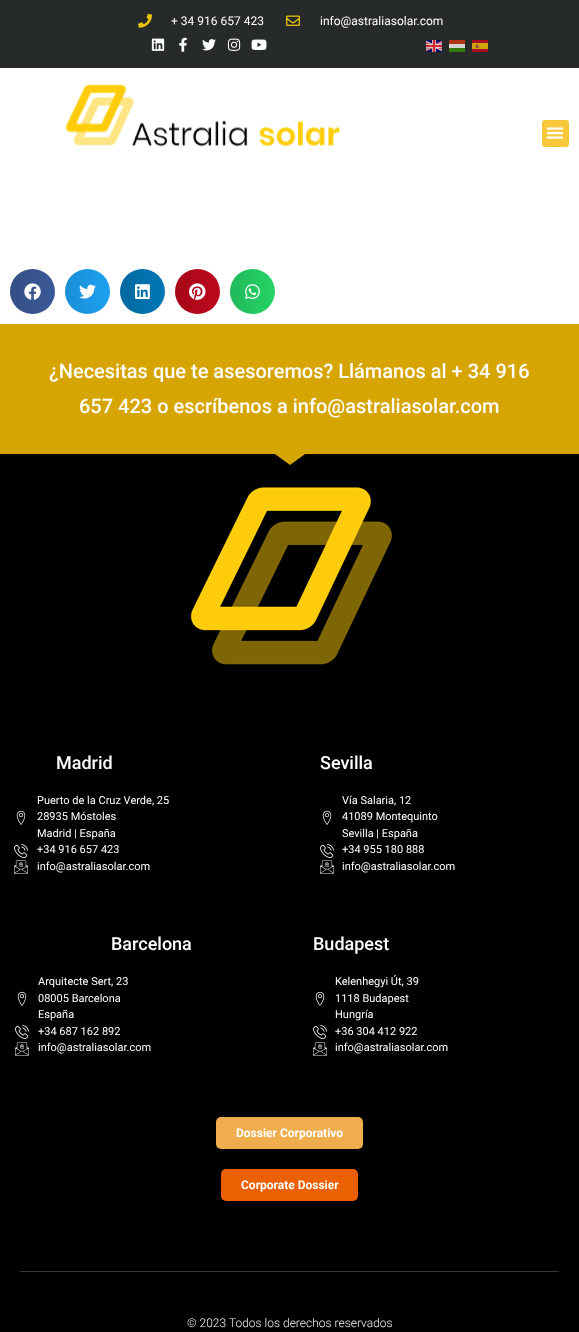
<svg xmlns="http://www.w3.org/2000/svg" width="579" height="1332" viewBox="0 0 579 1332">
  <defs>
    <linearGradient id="g1" gradientUnits="userSpaceOnUse" x1="10" y1="292" x2="55" y2="292"><stop offset="0" stop-color="rgb(0,0,0)" stop-opacity="0.12"/><stop offset="1" stop-color="rgb(0,0,0)" stop-opacity="0"/></linearGradient>
    <linearGradient id="g2" gradientUnits="userSpaceOnUse" x1="65" y1="292" x2="110" y2="292"><stop offset="0" stop-color="rgb(0,0,0)" stop-opacity="0.12"/><stop offset="1" stop-color="rgb(0,0,0)" stop-opacity="0"/></linearGradient>
    <linearGradient id="g3" gradientUnits="userSpaceOnUse" x1="120" y1="292" x2="165" y2="292"><stop offset="0" stop-color="rgb(0,0,0)" stop-opacity="0.12"/><stop offset="1" stop-color="rgb(0,0,0)" stop-opacity="0"/></linearGradient>
    <linearGradient id="g4" gradientUnits="userSpaceOnUse" x1="175" y1="292" x2="220" y2="292"><stop offset="0" stop-color="rgb(0,0,0)" stop-opacity="0.12"/><stop offset="1" stop-color="rgb(0,0,0)" stop-opacity="0"/></linearGradient>
    <linearGradient id="g5" gradientUnits="userSpaceOnUse" x1="230" y1="292" x2="275" y2="292"><stop offset="0" stop-color="rgb(0,0,0)" stop-opacity="0.12"/><stop offset="1" stop-color="rgb(0,0,0)" stop-opacity="0"/></linearGradient>
  </defs>
  <rect width="100%" height="100%" fill="rgb(255,255,255)"/>
  <rect x="0" y="0" width="579" height="68" fill="rgb(38,42,43)"/>
  <image x="138" y="13" width="14" height="15" href="pic1.png"/>
  <text x="171" y="25" font-family="Roboto" font-size="12" fill="rgb(255,255,255)">+ 34 916 657 423</text>
  <image x="286" y="15" width="14" height="11" href="pic2.png"/>
  <text x="320" y="25" font-family="Roboto" font-size="12" fill="rgb(255,255,255)">info@astraliasolar.com</text>
  <image x="151" y="38" width="14" height="13" href="pic3.png"/>
  <image x="179" y="37" width="8" height="15" href="pic4.png"/>
  <image x="202" y="39" width="14" height="12" href="pic5.png"/>
  <image x="227" y="38" width="14" height="13" href="pic6.png"/>
  <image x="251" y="39" width="16" height="11" href="pic7.png"/>
  <image x="426" y="40" width="16" height="12" href="pic8.png"/>
  <rect x="449" y="40" width="16" height="4" fill="rgb(177,51,26)"/>
  <image x="472" y="40" width="16" height="12" href="pic9.png"/>
  <rect x="449" y="44" width="16" height="4" fill="rgb(212,212,213)"/>
  <rect x="449" y="48" width="16" height="4" fill="rgb(52,121,9)"/>
  <image x="66" y="84" width="274" height="63" href="pic10.png"/>
  <rect x="542" y="120" width="27" height="27" rx="3" fill="rgb(249,200,58)"/>
  <image x="546" y="127" width="18" height="12" href="pic11.png"/>
  <circle cx="32.5" cy="291.5" r="22.5" fill="rgb(59,89,152)"/>
  <circle cx="32.5" cy="291.5" r="22.5" fill="url(#g1)"/>
  <image x="24" y="283" width="17" height="17" href="pic12.png"/>
  <circle cx="87.5" cy="291.5" r="22.5" fill="rgb(29,161,242)"/>
  <circle cx="87.5" cy="291.5" r="22.5" fill="url(#g2)"/>
  <image x="79" y="284" width="17" height="15" href="pic13.png"/>
  <circle cx="142.5" cy="291.5" r="22.5" fill="rgb(0,119,181)"/>
  <circle cx="142.5" cy="291.5" r="22.5" fill="url(#g3)"/>
  <image x="135" y="284" width="15" height="16" href="pic14.png"/>
  <circle cx="197.5" cy="291.5" r="22.5" fill="rgb(189,8,28)"/>
  <circle cx="197.5" cy="291.5" r="22.5" fill="url(#g4)"/>
  <image x="189" y="283" width="17" height="17" href="pic15.png"/>
  <circle cx="252.5" cy="291.5" r="22.5" fill="rgb(37,211,102)"/>
  <circle cx="252.5" cy="291.5" r="22.5" fill="url(#g5)"/>
  <image x="245" y="284" width="15" height="15" href="pic16.png"/>
  <rect x="0" y="324" width="579" height="130" fill="rgb(214,165,2)"/>
  <g font-family="Roboto" font-size="20" font-weight="500" fill="rgb(255,255,255)">
    <text x="49" y="378">¿Necesitas que te asesoremos? Llámanos al + 34 916</text>
    <text x="79" y="413">657 423 o escríbenos a info@astraliasolar.com</text>
  </g>
  <rect x="0" y="454" width="579" height="878" fill="rgb(0,0,0)"/>
  <path d="M290 465L273.5 453H306.5Z" fill="rgb(214,165,2)"/>
  <image x="190" y="487" width="202" height="178" href="pic17.png"/>
  <text x="56" y="769" font-family="Roboto" font-size="18" font-weight="500" fill="rgb(255,255,255)">Madrid</text>
  <image x="16" y="810" width="10" height="15" href="pic18.png"/>
  <g font-family="Roboto" font-size="11" fill="rgb(255,255,255)">
    <text>
      <tspan x="37" y="804">Puerto de la Cruz Verde, 25</tspan>
      <tspan x="37" y="820">28935 Móstoles</tspan>
      <tspan x="37" y="837">Madrid | España</tspan>
    </text>
  </g>
  <image x="14" y="844" width="14" height="14" href="pic19.png"/>
  <text x="37" y="853" font-family="Roboto" font-size="11" fill="rgb(255,255,255)">+34 916 657 423</text>
  <image x="14" y="860" width="14" height="14" href="pic20.png"/>
  <text x="37" y="870" font-family="Roboto" font-size="11" fill="rgb(255,255,255)">info@astraliasolar.com</text>
  <text x="320" y="769" font-family="Roboto" font-size="18" font-weight="500" fill="rgb(255,255,255)">Sevilla</text>
  <image x="322" y="810" width="10" height="15" href="pic18.png"/>
  <g font-family="Roboto" font-size="11" fill="rgb(255,255,255)">
    <text>
      <tspan x="342" y="804">Vía Salaria, 12</tspan>
      <tspan x="342" y="820">41089 Montequinto</tspan>
      <tspan x="342" y="837">Sevilla | España</tspan>
    </text>
  </g>
  <image x="320" y="844" width="14" height="14" href="pic19.png"/>
  <text x="342" y="853" font-family="Roboto" font-size="11" fill="rgb(255,255,255)">+34 955 180 888</text>
  <image x="320" y="860" width="14" height="14" href="pic20.png"/>
  <text x="342" y="870" font-family="Roboto" font-size="11" fill="rgb(255,255,255)">info@astraliasolar.com</text>
  <text x="111" y="950" font-family="Roboto" font-size="18" font-weight="500" fill="rgb(255,255,255)">Barcelona</text>
  <image x="17" y="991" width="10" height="15" href="pic18.png"/>
  <g font-family="Roboto" font-size="11" fill="rgb(255,255,255)">
    <text>
      <tspan x="38" y="985">Arquitecte Sert, 23</tspan>
      <tspan x="38" y="1002">08005 Barcelona</tspan>
      <tspan x="38" y="1018">España</tspan>
    </text>
  </g>
  <image x="15" y="1025" width="14" height="14" href="pic19.png"/>
  <text x="38" y="1035" font-family="Roboto" font-size="11" fill="rgb(255,255,255)">+34 687 162 892</text>
  <image x="15" y="1042" width="14" height="14" href="pic20.png"/>
  <text x="38" y="1051" font-family="Roboto" font-size="11" fill="rgb(255,255,255)">info@astraliasolar.com</text>
  <text x="313" y="950" font-family="Roboto" font-size="18" font-weight="500" fill="rgb(255,255,255)">Budapest</text>
  <image x="315" y="991" width="10" height="15" href="pic18.png"/>
  <g font-family="Roboto" font-size="11" fill="rgb(255,255,255)">
    <text>
      <tspan x="335" y="985">Kelenhegyi Út, 39</tspan>
      <tspan x="335" y="1002">1118 Budapest</tspan>
      <tspan x="335" y="1018">Hungría</tspan>
    </text>
  </g>
  <image x="313" y="1025" width="14" height="14" href="pic19.png"/>
  <text x="335" y="1035" font-family="Roboto" font-size="11" fill="rgb(255,255,255)">+36 304 412 922</text>
  <image x="313" y="1042" width="14" height="14" href="pic20.png"/>
  <text x="335" y="1051" font-family="Roboto" font-size="11" fill="rgb(255,255,255)">info@astraliasolar.com</text>
  <rect x="216" y="1117" width="147" height="32" rx="5" fill="rgb(240,173,78)"/>
  <text x="236" y="1137" font-family="Roboto" font-size="12" font-weight="bold" fill="rgb(255,255,255)">Dossier Corporativo</text>
  <rect x="221" y="1169" width="137" height="32" rx="5" fill="rgb(234,96,2)"/>
  <text x="241" y="1189" font-family="Roboto" font-size="12" font-weight="bold" fill="rgb(255,255,255)">Corporate Dossier</text>
  <rect x="20" y="1271" width="539" height="1" fill="rgb(54,54,54)"/>
  <text x="187" y="1327" font-family="Roboto" font-size="12" font-weight="300" fill="rgb(242,242,242)">© 2023 Todos los derechos reservados</text>
</svg>
